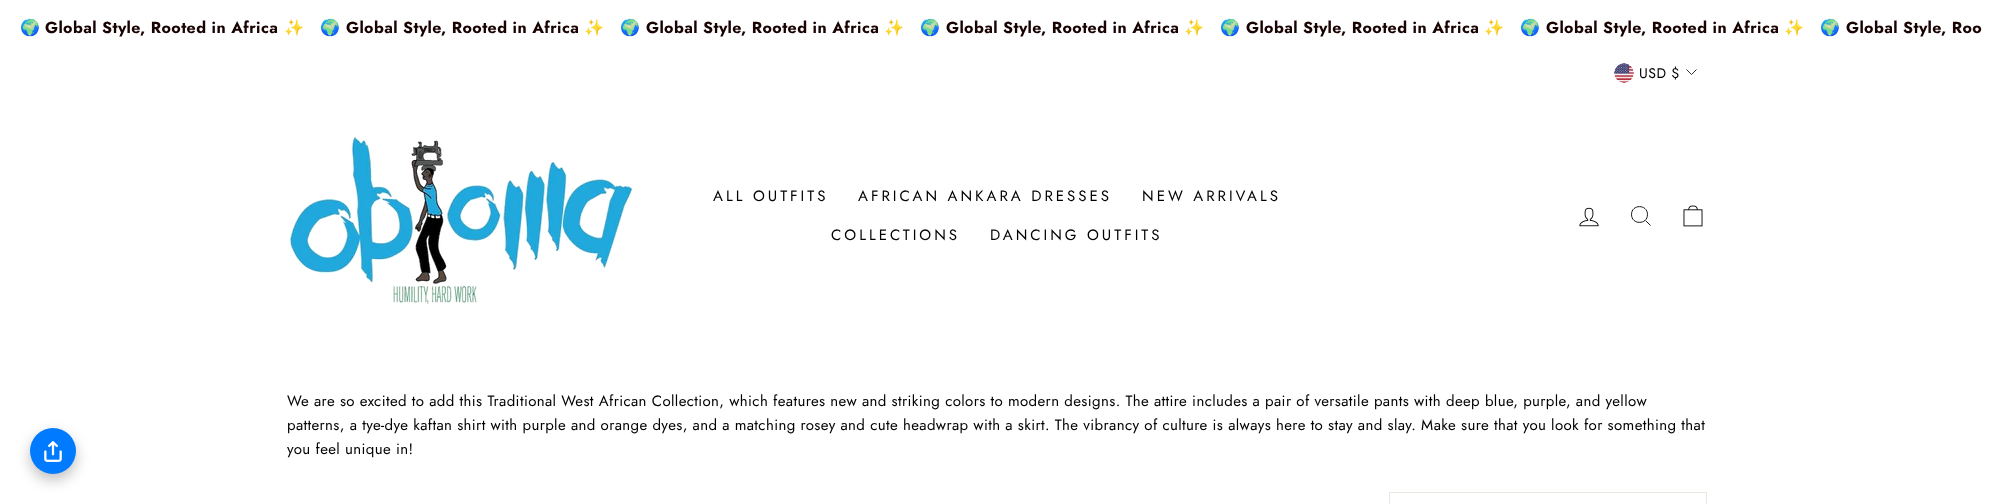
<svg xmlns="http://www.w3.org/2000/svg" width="1994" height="504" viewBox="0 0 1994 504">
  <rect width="100%" height="100%" fill="rgb(255,255,255)"/>
  <text x="20" y="33" font-family="Noto Color Emoji" font-size="16" font-weight="bold" letter-spacing="0.38" fill="rgb(25,2,2)">🌍</text>
  <text x="45" y="33" font-family="Jost" font-size="16" font-weight="bold" letter-spacing="0.38" fill="rgb(25,2,2)">Global Style, Rooted in Africa</text>
  <g font-family="Noto Color Emoji" font-size="16" font-weight="bold" letter-spacing="0.38" fill="rgb(25,2,2)">
    <text x="284" y="33">✨</text>
    <text x="320" y="33">🌍</text>
  </g>
  <text x="346" y="33" font-family="Jost" font-size="16" font-weight="bold" letter-spacing="0.38" fill="rgb(25,2,2)">Global Style, Rooted in Africa</text>
  <g font-family="Noto Color Emoji" font-size="16" font-weight="bold" letter-spacing="0.38" fill="rgb(25,2,2)">
    <text x="584" y="33">✨</text>
    <text x="620" y="33">🌍</text>
  </g>
  <text x="646" y="33" font-family="Jost" font-size="16" font-weight="bold" letter-spacing="0.38" fill="rgb(25,2,2)">Global Style, Rooted in Africa</text>
  <g font-family="Noto Color Emoji" font-size="16" font-weight="bold" letter-spacing="0.38" fill="rgb(25,2,2)">
    <text x="884" y="33">✨</text>
    <text x="920" y="33">🌍</text>
  </g>
  <text x="946" y="33" font-family="Jost" font-size="16" font-weight="bold" letter-spacing="0.38" fill="rgb(25,2,2)">Global Style, Rooted in Africa</text>
  <g font-family="Noto Color Emoji" font-size="16" font-weight="bold" letter-spacing="0.38" fill="rgb(25,2,2)">
    <text x="1184" y="33">✨</text>
    <text x="1220" y="33">🌍</text>
  </g>
  <text x="1246" y="33" font-family="Jost" font-size="16" font-weight="bold" letter-spacing="0.38" fill="rgb(25,2,2)">Global Style, Rooted in Africa</text>
  <g font-family="Noto Color Emoji" font-size="16" font-weight="bold" letter-spacing="0.38" fill="rgb(25,2,2)">
    <text x="1484" y="33">✨</text>
    <text x="1520" y="33">🌍</text>
  </g>
  <text x="1546" y="33" font-family="Jost" font-size="16" font-weight="bold" letter-spacing="0.38" fill="rgb(25,2,2)">Global Style, Rooted in Africa</text>
  <g font-family="Noto Color Emoji" font-size="16" font-weight="bold" letter-spacing="0.38" fill="rgb(25,2,2)">
    <text x="1784" y="33">✨</text>
    <text x="1820" y="33">🌍</text>
  </g>
  <text x="1846" y="33" font-family="Jost" font-size="16" font-weight="bold" letter-spacing="0.38" fill="rgb(25,2,2)">Global Style, Roo</text>
  <rect x="30" y="434" width="46" height="46" rx="23" fill="rgba(0,0,0,0.25)" filter="blur(7px)"/>
  <circle cx="53" cy="451" r="23" fill="rgb(0,122,254)"/>
  <image x="44" y="441" width="18" height="21" href="pic1.png"/>
  <image x="1614" y="63" width="20" height="20" href="pic2.png"/>
  <text x="1639" y="78" font-family="Jost" font-size="14" letter-spacing="0.5" fill="rgb(0,0,0)">USD $</text>
  <path d="M1686.5 69.5L1691.5 74.5L1696.5 69.5" fill="none" stroke="rgb(0,0,0)" stroke-width="0.8"/>
  <image x="290" y="137" width="343" height="168" href="pic3.png"/>
  <g font-family="Jost" font-size="15" letter-spacing="3" fill="rgb(0,0,0)">
    <text x="713" y="201">ALL OUTFITS</text>
    <text x="858" y="201">AFRICAN ANKARA DRESSES</text>
    <text x="1142" y="201">NEW ARRIVALS</text>
    <text x="831" y="240">COLLECTIONS</text>
    <text x="990" y="240">DANCING OUTFITS</text>
  </g>
  <image x="1579" y="207" width="20" height="20" href="pic4.png"/>
  <path d="M1647.5 214.5C1647.5 225 1631.5 225 1631.5 214.5C1631.5 204 1647.5 204 1647.5 214.5ZM1650.5 225.5L1645.5 220.5" fill="none" stroke="rgb(0,0,0)" stroke-width="0.9"/>
  <image x="1683" y="205" width="20" height="22" href="pic5.png"/>
  <g font-family="Jost" font-size="15" letter-spacing="0.38" fill="rgb(0,0,0)">
    <text>
      <tspan x="287" y="406">We are so excited to add this Traditional West African Collection, which features new and striking colors to modern designs. The attire includes a pair of versatile pants with deep blue, purple, and yellow</tspan>
      <tspan x="287" y="430">patterns, a tye-dye kaftan shirt with purple and orange dyes, and a matching rosey and cute headwrap with a skirt. The vibrancy of culture is always here to stay and slay. Make sure that you look for something that</tspan>
      <tspan x="287" y="454">you feel unique in!</tspan>
    </text>
  </g>
  <rect x="1389.5" y="492.5" width="317" height="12" fill="none" stroke="rgb(232,232,225)"/>
</svg>
